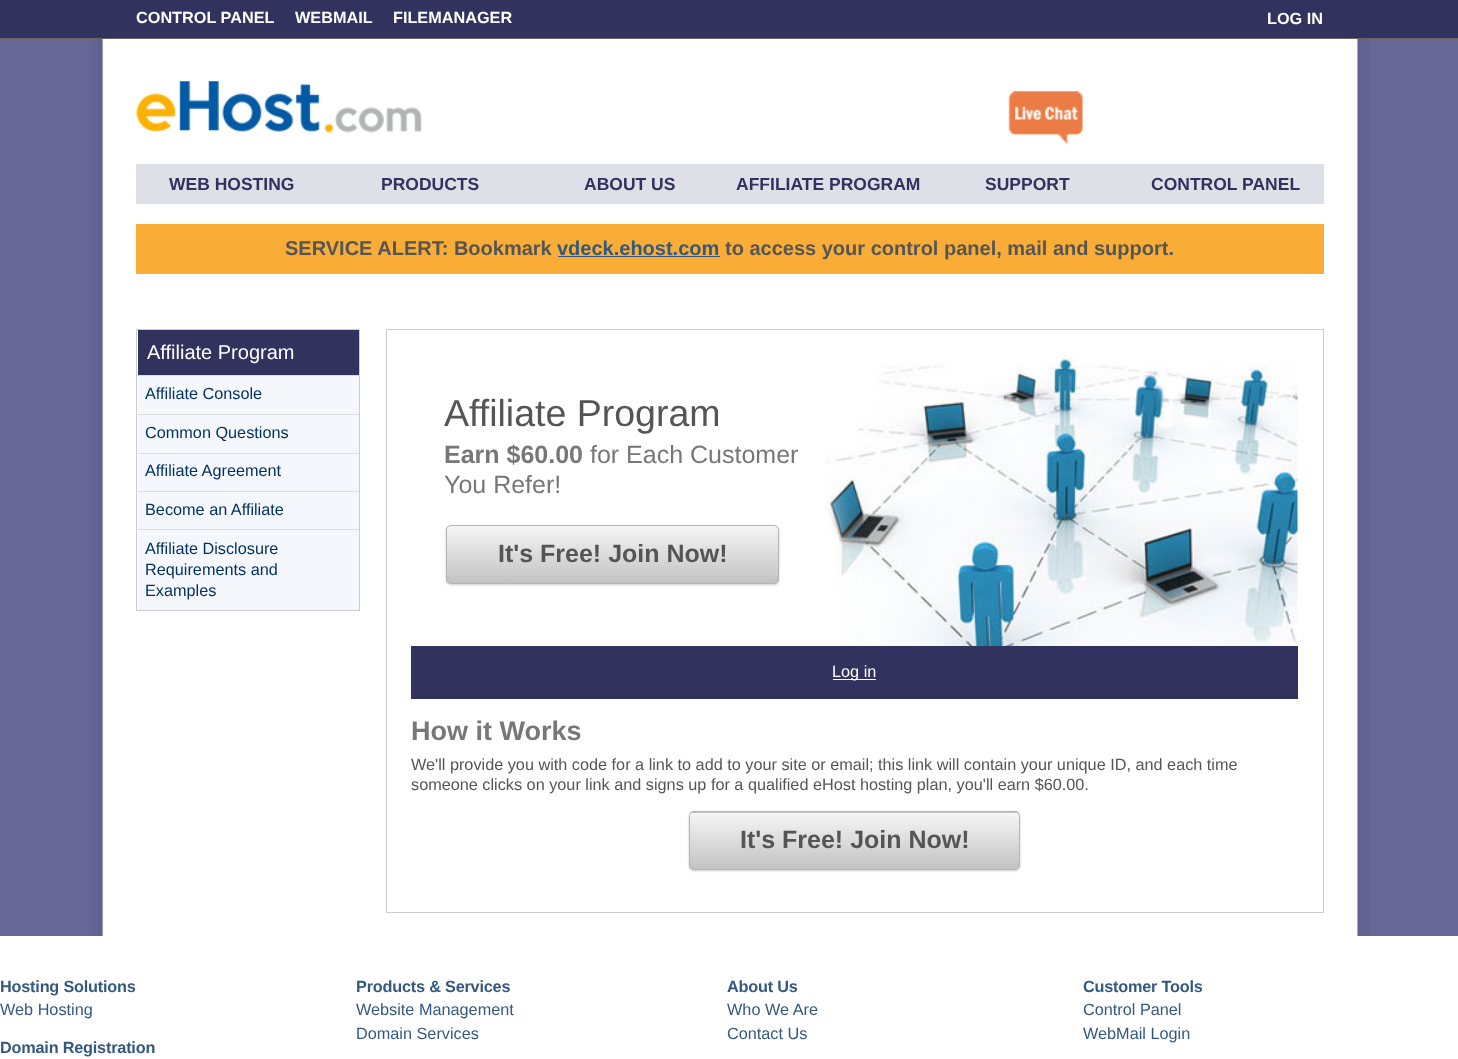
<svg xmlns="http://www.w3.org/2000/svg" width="1458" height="1059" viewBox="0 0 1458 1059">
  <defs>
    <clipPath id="clip1"><rect x="446" y="525" width="333" height="59" rx="5"/></clipPath>
    <linearGradient id="g1" gradientUnits="userSpaceOnUse" x1="448" y1="526" x2="448" y2="583"><stop offset="0" stop-color="rgb(246,246,246)"/><stop offset="1" stop-color="rgb(194,194,194)"/></linearGradient>
    <clipPath id="clip2"><rect x="689" y="811" width="331" height="59" rx="5"/></clipPath>
    <linearGradient id="g2" gradientUnits="userSpaceOnUse" x1="690" y1="756" x2="690" y2="813"><stop offset="0" stop-color="rgb(246,246,246)"/><stop offset="1" stop-color="rgb(194,194,194)"/></linearGradient>
    <linearGradient id="g3" gradientUnits="userSpaceOnUse" x1="690" y1="813" x2="690" y2="869"><stop offset="0" stop-color="rgb(246,246,246)"/><stop offset="1" stop-color="rgb(194,194,194)"/></linearGradient>
  </defs>
  <rect width="100%" height="100%" fill="rgb(103,103,152)"/>
  <image x="91" y="39" width="1279" height="897" href="pic1.png"/>
  <rect x="0" y="0" width="1458" height="38" fill="rgb(49,50,94)"/>
  <rect x="0" y="38" width="1458" height="1" fill="rgb(102,102,102)"/>
  <g font-family="Liberation Sans" font-size="16.25" font-weight="bold" fill="rgb(255,255,255)">
    <text x="136" y="23">CONTROL PANEL</text>
    <text x="295" y="23">WEBMAIL</text>
    <text x="393" y="23">FILEMANAGER</text>
    <text x="1267" y="24">LOG IN</text>
  </g>
  <image x="136" y="81" width="286" height="52" href="pic2.png"/>
  <image x="1008" y="91" width="76" height="54" href="pic3.png"/>
  <rect x="136" y="164" width="1188" height="40" fill="rgb(223,223,232)"/>
  <g font-family="Liberation Sans" font-size="17.5" font-weight="bold" fill="rgb(49,50,94)">
    <text x="169" y="190">WEB HOSTING</text>
    <text x="381" y="190">PRODUCTS</text>
    <text x="584" y="190">ABOUT US</text>
    <text x="736" y="190">AFFILIATE PROGRAM</text>
    <text x="985" y="190">SUPPORT</text>
    <text x="1151" y="190">CONTROL PANEL</text>
  </g>
  <rect x="136" y="224" width="1188" height="50" fill="rgb(249,173,55)"/>
  <text x="285" y="255" font-family="Liberation Sans" font-size="20" font-weight="bold" fill="rgb(85,85,85)">SERVICE ALERT: Bookmark</text>
  <text x="557" y="255" font-family="Liberation Sans" font-size="20" font-weight="bold" fill="rgb(52,89,126)">vdeck.ehost.com</text>
  <rect x="558" y="256" width="162" height="1" fill="rgb(52,89,126)"/>
  <text x="725" y="255" font-family="Liberation Sans" font-size="20" font-weight="bold" fill="rgb(85,85,85)">to access your control panel, mail and support.</text>
  <rect x="136.5" y="329.5" width="223" height="281" fill="none" stroke="rgb(204,204,204)"/>
  <rect x="138" y="330" width="221" height="45" fill="rgb(49,50,94)"/>
  <text x="147" y="359" font-family="Liberation Sans" font-size="20" fill="rgb(255,255,255)">Affiliate Program</text>
  <rect x="138" y="376" width="221" height="38" fill="rgb(244,247,252)"/>
  <rect x="138" y="375" width="221" height="1" fill="rgb(221,221,221)"/>
  <text x="145" y="399" font-family="Liberation Sans" font-size="16.25" fill="rgb(1,48,94)">Affiliate Console</text>
  <rect x="138" y="415" width="221" height="38" fill="rgb(244,247,252)"/>
  <rect x="138" y="414" width="221" height="1" fill="rgb(221,221,221)"/>
  <text x="145" y="438" font-family="Liberation Sans" font-size="16.25" fill="rgb(1,48,94)">Common Questions</text>
  <rect x="138" y="454" width="221" height="37" fill="rgb(244,247,252)"/>
  <rect x="138" y="453" width="221" height="1" fill="rgb(221,221,221)"/>
  <text x="145" y="476" font-family="Liberation Sans" font-size="16.25" fill="rgb(1,48,94)">Affiliate Agreement</text>
  <rect x="138" y="492" width="221" height="37" fill="rgb(244,247,252)"/>
  <rect x="138" y="491" width="221" height="1" fill="rgb(221,221,221)"/>
  <text x="145" y="515" font-family="Liberation Sans" font-size="16.25" fill="rgb(1,48,94)">Become an Affiliate</text>
  <rect x="138" y="530" width="221" height="80" fill="rgb(244,247,252)"/>
  <rect x="138" y="529" width="221" height="1" fill="rgb(221,221,221)"/>
  <g font-family="Liberation Sans" font-size="16.25" fill="rgb(1,48,94)">
    <text>
      <tspan x="145" y="554">Affiliate Disclosure</tspan>
      <tspan x="145" y="575">Requirements and</tspan>
      <tspan x="145" y="596">Examples</tspan>
    </text>
  </g>
  <rect x="386.5" y="329.5" width="937" height="583" fill="none" stroke="rgb(204,204,204)"/>
  <image x="825" y="355" width="473" height="291" href="pic4.png"/>
  <text x="444" y="426" font-family="Liberation Sans" font-size="37.5" fill="rgb(85,85,85)">Affiliate Program</text>
  <text x="444" y="463" font-family="Liberation Sans" font-size="25" font-weight="bold" fill="rgb(119,119,119)">Earn $60.00</text>
  <g font-family="Liberation Sans" font-size="25" fill="rgb(119,119,119)">
    <text x="590" y="463">for Each Customer</text>
    <text x="444" y="493">You Refer!</text>
  </g>
  <rect x="446" y="526" width="333" height="59" rx="5" fill="rgba(0,0,0,0.2)" filter="blur(1px)"/>
  <g clip-path="url(#clip1)">
    <rect x="446" y="526" width="333" height="57" fill="url(#g1)"/>
  </g>
  <rect x="446.5" y="525.5" width="332" height="58" rx="4.5" fill="none" stroke="rgb(180,180,180)"/>
  <text x="498" y="562" font-family="Liberation Sans" font-size="25" font-weight="bold" fill="rgb(85,85,85)">It's Free! Join Now!</text>
  <rect x="411" y="646" width="887" height="53" fill="rgb(49,50,94)"/>
  <rect x="833" y="679" width="43" height="1" fill="rgb(255,255,255)"/>
  <text x="832" y="677" font-family="Liberation Sans" font-size="16.25" fill="rgb(255,255,255)">Log in</text>
  <text x="411" y="740" font-family="Liberation Sans" font-size="27" font-weight="bold" fill="rgb(119,119,119)">How it Works</text>
  <g font-family="Liberation Sans" font-size="16.25" fill="rgb(85,85,85)">
    <text>
      <tspan x="411" y="770">We'll provide you with code for a link to add to your site or email; this link will contain your unique ID, and each time</tspan>
      <tspan x="411" y="790">someone clicks on your link and signs up for a qualified eHost hosting plan, you'll earn $60.00.</tspan>
    </text>
  </g>
  <rect x="689" y="813" width="331" height="58" rx="5" fill="rgba(0,0,0,0.2)" filter="blur(1px)"/>
  <g clip-path="url(#clip2)">
    <rect x="689" y="811" width="331" height="2" fill="url(#g2)"/>
    <rect x="689" y="813" width="331" height="56" fill="url(#g3)"/>
  </g>
  <rect x="689.5" y="811.5" width="330" height="58" rx="4.5" fill="none" stroke="rgb(180,180,180)"/>
  <text x="740" y="848" font-family="Liberation Sans" font-size="25" font-weight="bold" fill="rgb(85,85,85)">It's Free! Join Now!</text>
  <rect x="0" y="936" width="1458" height="123" fill="rgb(255,255,255)"/>
  <text x="0" y="992" font-family="Liberation Sans" font-size="16.25" font-weight="bold" letter-spacing="-0.2" fill="rgb(52,89,126)">Hosting Solutions</text>
  <text x="0" y="1015" font-family="Liberation Sans" font-size="16.25" fill="rgb(52,89,126)">Web Hosting</text>
  <g font-family="Liberation Sans" font-size="16.25" font-weight="bold" letter-spacing="-0.2" fill="rgb(52,89,126)">
    <text x="0" y="1053">Domain Registration</text>
    <text x="356" y="992">Products &amp; Services</text>
  </g>
  <g font-family="Liberation Sans" font-size="16.25" fill="rgb(52,89,126)">
    <text>
      <tspan x="356" y="1015">Website Management</tspan>
      <tspan x="356" y="1039">Domain Services</tspan>
    </text>
  </g>
  <text x="727" y="992" font-family="Liberation Sans" font-size="16.25" font-weight="bold" letter-spacing="-0.2" fill="rgb(52,89,126)">About Us</text>
  <g font-family="Liberation Sans" font-size="16.25" fill="rgb(52,89,126)">
    <text>
      <tspan x="727" y="1015">Who We Are</tspan>
      <tspan x="727" y="1039">Contact Us</tspan>
    </text>
  </g>
  <text x="1083" y="992" font-family="Liberation Sans" font-size="16.25" font-weight="bold" letter-spacing="-0.2" fill="rgb(52,89,126)">Customer Tools</text>
  <g font-family="Liberation Sans" font-size="16.25" fill="rgb(52,89,126)">
    <text>
      <tspan x="1083" y="1015">Control Panel</tspan>
      <tspan x="1083" y="1039">WebMail Login</tspan>
    </text>
  </g>
</svg>
